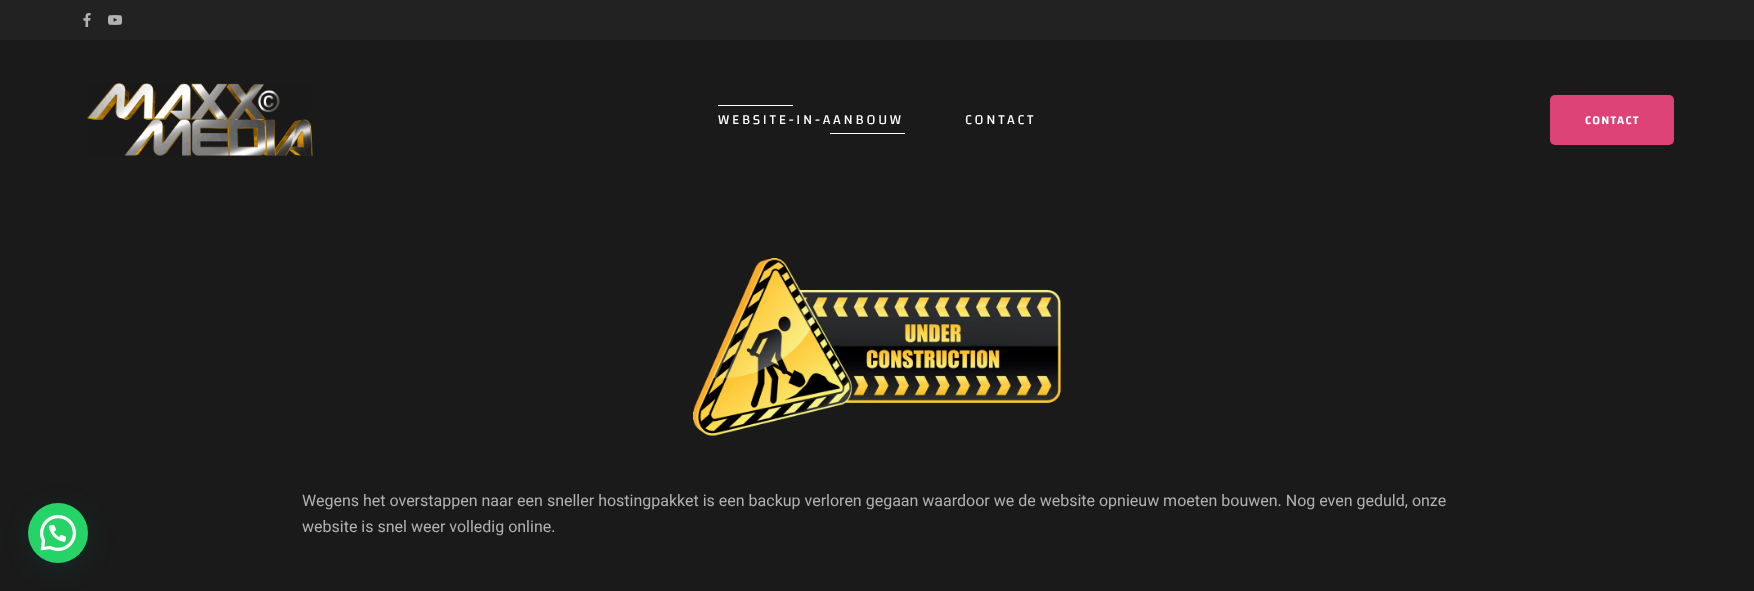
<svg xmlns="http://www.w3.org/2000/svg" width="1754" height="591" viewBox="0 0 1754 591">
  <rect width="100%" height="100%" fill="rgb(26,26,26)"/>
  <rect x="29" y="509" width="60" height="60" rx="30" fill="rgba(7,94,84,0.24)" filter="blur(12px)"/>
  <circle cx="58" cy="533" r="30" fill="rgb(37,211,102)"/>
  <image x="40" y="515" width="36" height="36" href="pic1.png"/>
  <rect x="0" y="0" width="1754" height="40" fill="rgb(34,34,34)"/>
  <image x="83" y="13" width="8" height="14" href="pic2.png"/>
  <image x="108" y="15" width="14" height="10" href="pic3.png"/>
  <image x="87" y="83" width="226" height="73" href="pic4.png"/>
  <rect x="718" y="105" width="75" height="1" fill="rgb(255,255,255)"/>
  <text x="718" y="124" font-family="Changa" font-size="14" letter-spacing="2.75" fill="rgb(255,255,255)">WEBSITE-IN-AANBOUW</text>
  <rect x="830" y="133" width="75" height="1" fill="rgb(255,255,255)"/>
  <text x="965" y="124" font-family="Changa" font-size="14" letter-spacing="2.75" fill="rgb(255,255,255)">CONTACT</text>
  <rect x="1550" y="95" width="124" height="50" rx="5" fill="rgb(221,67,119)"/>
  <text x="1585" y="124" font-family="Changa" font-size="12" font-weight="600" letter-spacing="1.25" fill="rgb(255,255,255)">CONTACT</text>
  <image x="693" y="258" width="368" height="178" href="pic5.png"/>
  <g font-family="Roboto" font-size="16" fill="rgb(178,178,178)">
    <text>
      <tspan x="302" y="506">Wegens het overstappen naar een sneller hostingpakket is een backup verloren gegaan waardoor we de website opnieuw moeten bouwen. Nog even geduld, onze</tspan>
      <tspan x="302" y="532">website is snel weer volledig online.</tspan>
    </text>
  </g>
</svg>
